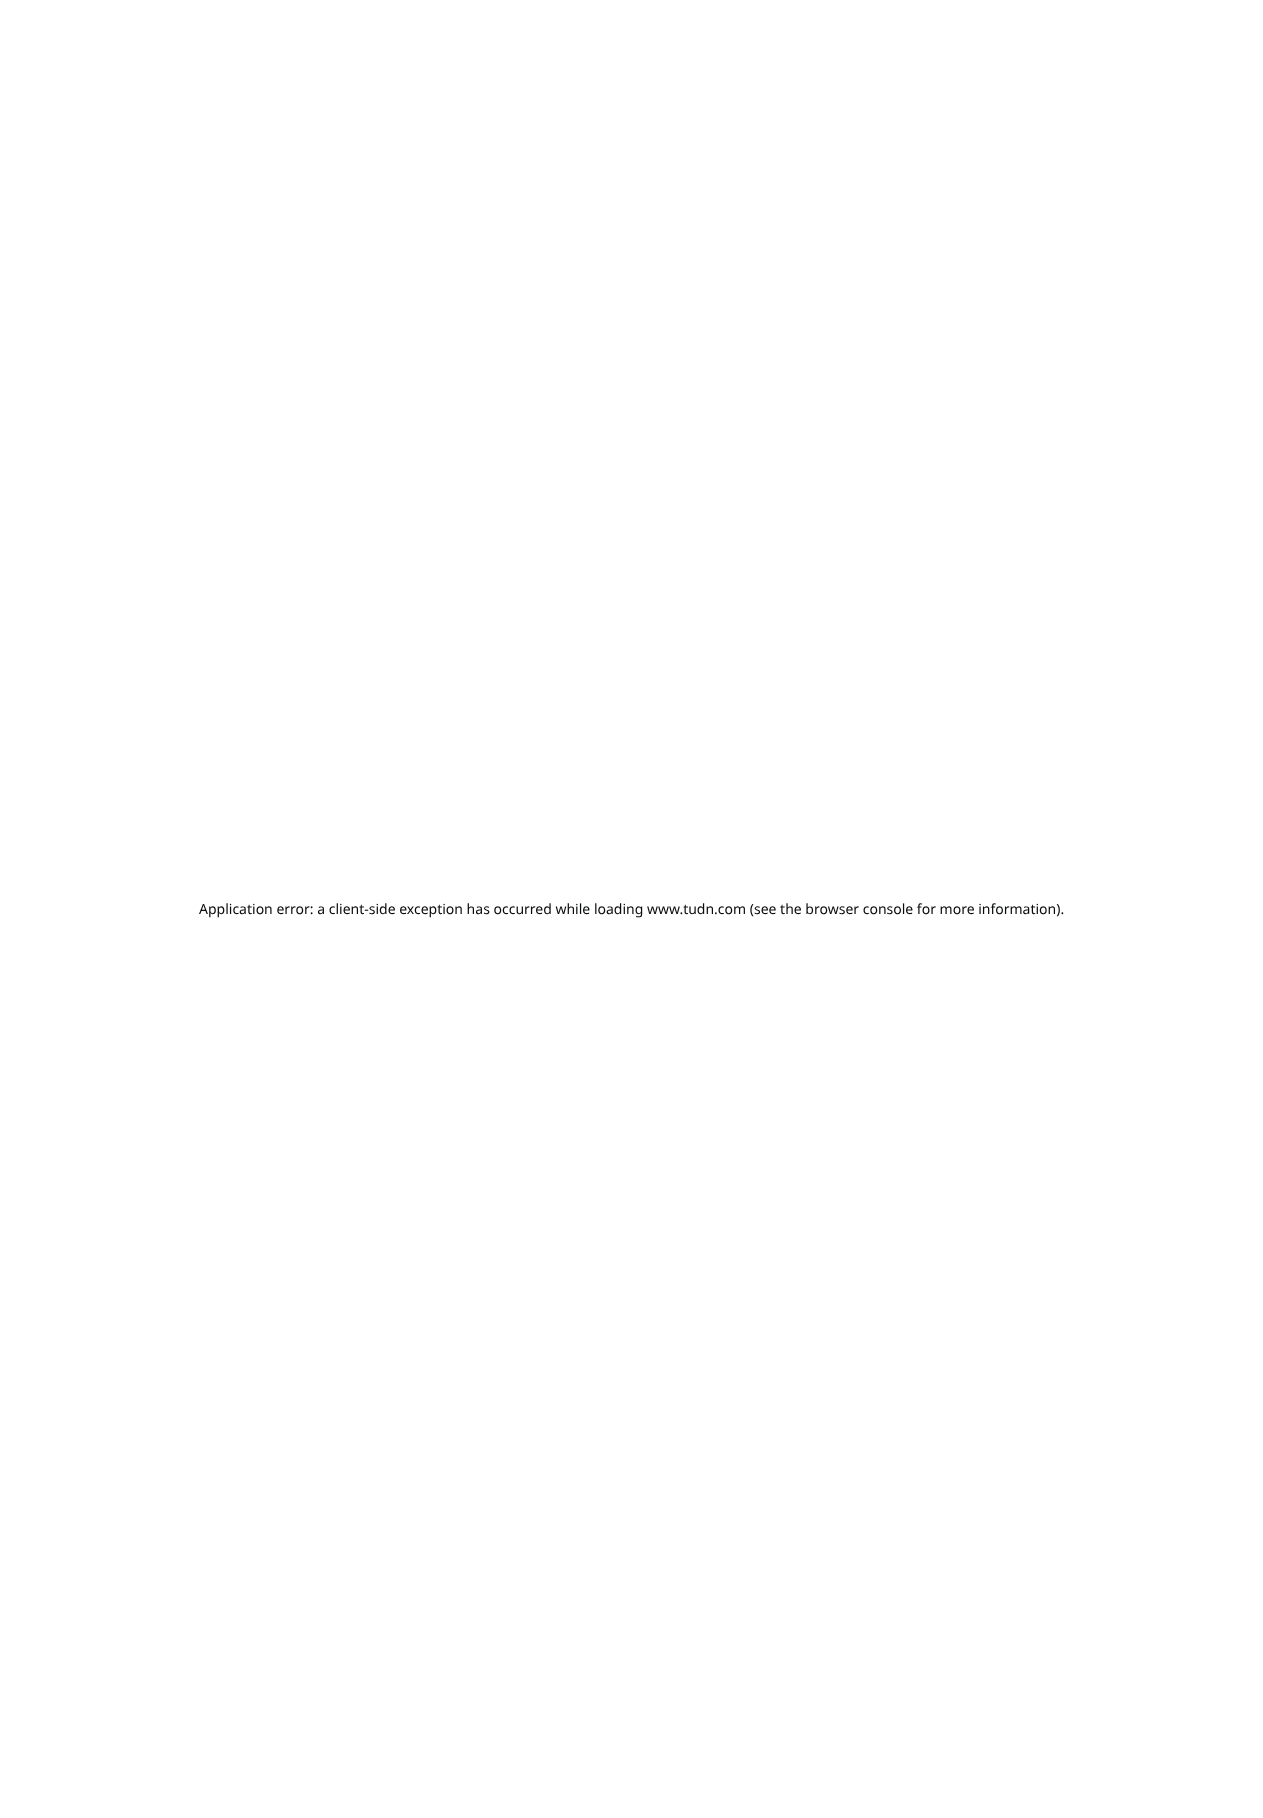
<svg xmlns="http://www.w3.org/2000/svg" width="1263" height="1818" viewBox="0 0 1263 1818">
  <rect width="100%" height="100%" fill="rgb(255,255,255)"/>
  <text x="199" y="914" font-family="Noto Sans" font-size="14" fill="rgb(10,11,11)">Application error: a client-side exception has occurred while loading www.tudn.com (see the browser console for more information).</text>
</svg>
